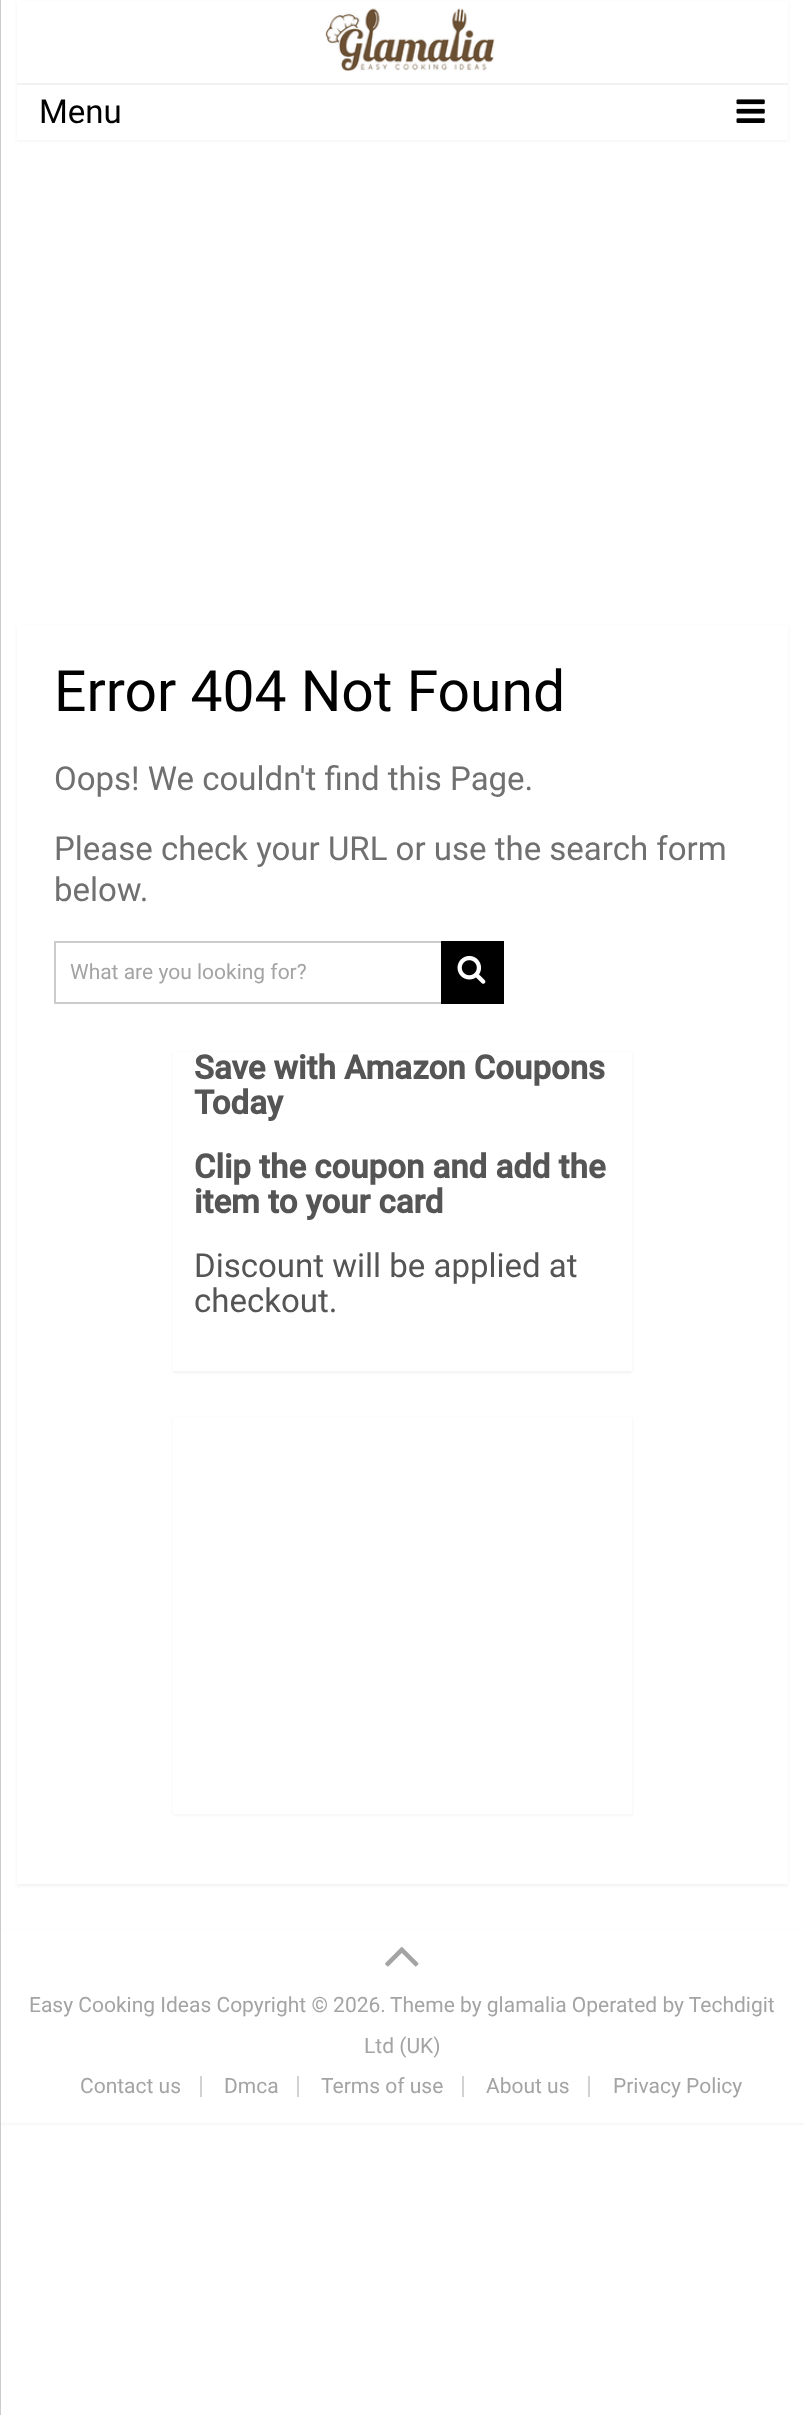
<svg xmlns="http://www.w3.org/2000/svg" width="804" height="2415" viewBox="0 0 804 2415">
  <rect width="100%" height="100%" fill="rgb(255,255,255)"/>
  <rect x="17" y="2" width="771" height="139" fill="rgba(0,0,0,0.05)" filter="blur(1.5px)"/>
  <rect x="17" y="1" width="771" height="139" fill="rgb(255,255,255)"/>
  <image x="325" y="8" width="170" height="63" href="pic1.png"/>
  <rect x="17" y="83" width="771" height="2" fill="rgb(242,242,242)"/>
  <rect x="0" y="1931" width="804" height="193" fill="rgba(0,0,0,0.05)" filter="blur(1.5px)"/>
  <rect x="0" y="1930" width="804" height="193" fill="rgb(255,255,255)"/>
  <rect x="0" y="0" width="1" height="2415" fill="rgba(0,0,0,0.2)"/>
  <text x="39" y="123" font-family="Roboto" font-size="33" fill="rgb(0,0,0)">Menu</text>
  <image x="736" y="99" width="29" height="24" href="pic2.png"/>
  <rect x="17" y="626" width="771" height="1260" fill="rgba(0,0,0,0.05)" filter="blur(1.5px)"/>
  <rect x="17" y="625" width="771" height="1259" fill="rgb(255,255,255)"/>
  <text x="54" y="711" font-family="Roboto" font-size="57" fill="rgb(0,0,0)">Error 404 Not Found</text>
  <g font-family="Roboto" font-size="33" fill="rgb(112,112,112)">
    <text x="54" y="790">Oops! We couldn't find this Page.</text>
    <text>
      <tspan x="54" y="860">Please check your URL or use the search form</tspan>
      <tspan x="54" y="901">below.</tspan>
    </text>
  </g>
  <rect x="55" y="942" width="448" height="61" fill="none" stroke="rgb(204,204,204)" stroke-width="2"/>
  <text x="70" y="979" font-family="Roboto" font-size="21" fill="rgb(164,164,164)">What are you looking for?</text>
  <rect x="441" y="941" width="63" height="63" fill="rgb(0,0,0)"/>
  <image x="457" y="955" width="29" height="29" href="pic3.png"/>
  <rect x="173" y="1053" width="459" height="320" fill="rgba(0,0,0,0.05)" filter="blur(1.5px)"/>
  <rect x="173" y="1052" width="459" height="319" fill="rgb(255,255,255)"/>
  <g font-family="Roboto" font-size="33" font-weight="bold" fill="rgb(85,85,85)">
    <text>
      <tspan x="194" y="1079">Save with Amazon Coupons</tspan>
      <tspan x="194" y="1114">Today</tspan>
      <tspan x="194" y="1178">Clip the coupon and add the</tspan>
      <tspan x="194" y="1213">item to your card</tspan>
    </text>
  </g>
  <g font-family="Roboto" font-size="33" fill="rgb(85,85,85)">
    <text>
      <tspan x="194" y="1277">Discount will be applied at</tspan>
      <tspan x="194" y="1312">checkout.</tspan>
    </text>
  </g>
  <rect x="173" y="1418" width="459" height="397" fill="rgba(0,0,0,0.05)" filter="blur(1.5px)"/>
  <rect x="173" y="1417" width="459" height="397" fill="rgb(255,255,255)"/>
  <image x="385" y="1947" width="34" height="20" href="pic4.png"/>
  <g font-family="Roboto" font-size="21" fill="rgb(164,164,164)">
    <text x="29" y="2012">Easy Cooking Ideas Copyright © 2026.</text>
    <text x="390" y="2012">Theme by glamalia Operated by Techdigit</text>
    <text x="364" y="2053">Ltd (UK)</text>
  </g>
  <rect x="200" y="2076" width="2" height="21" fill="rgb(210,210,210)"/>
  <text x="80" y="2093" font-family="Roboto" font-size="21" fill="rgb(164,164,164)">Contact us</text>
  <rect x="297" y="2076" width="2" height="21" fill="rgb(210,210,210)"/>
  <text x="224" y="2093" font-family="Roboto" font-size="21" fill="rgb(164,164,164)">Dmca</text>
  <rect x="462" y="2076" width="2" height="21" fill="rgb(210,210,210)"/>
  <text x="321" y="2093" font-family="Roboto" font-size="21" fill="rgb(164,164,164)">Terms of use</text>
  <rect x="588" y="2076" width="2" height="21" fill="rgb(210,210,210)"/>
  <g font-family="Roboto" font-size="21" fill="rgb(164,164,164)">
    <text x="486" y="2093">About us</text>
    <text x="613" y="2093">Privacy Policy</text>
  </g>
</svg>
